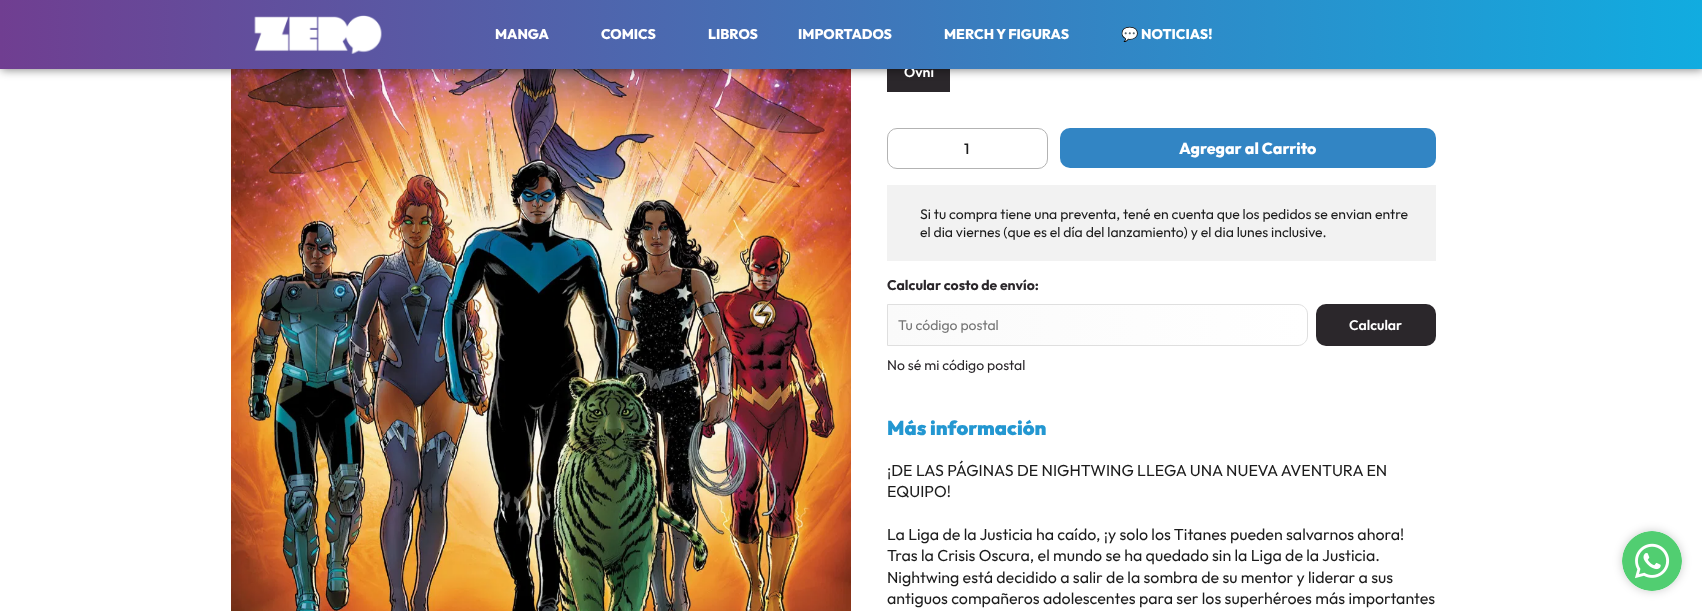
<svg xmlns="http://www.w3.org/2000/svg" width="1702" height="611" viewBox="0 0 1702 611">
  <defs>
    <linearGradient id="g1" gradientUnits="userSpaceOnUse" x1="0" y1="16" x2="1702" y2="16"><stop offset="0" stop-color="rgb(112,62,145)"/><stop offset="1" stop-color="rgb(17,172,224)"/></linearGradient>
    <clipPath id="clip1"><path d="M887 304H1298C1303.5 304 1308 308.5 1308 314V336C1308 341.5 1303.5 346 1298 346H887Z"/></clipPath>
    <linearGradient id="g2" gradientUnits="userSpaceOnUse" x1="888" y1="325" x2="1307" y2="325"><stop offset="0" stop-color="rgb(250,250,250)"/><stop offset="1" stop-color="rgb(255,255,255)"/></linearGradient>
  </defs>
  <rect width="100%" height="100%" fill="rgb(255,255,255)"/>
  <image x="231" y="69" width="620" height="542" href="pic2.png"/>
  <rect x="887" y="69" width="63" height="23" fill="rgb(43,39,43)"/>
  <rect x="1" y="-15" width="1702" height="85" fill="rgba(0,0,0,0.47)" filter="blur(5px)"/>
  <text x="904" y="77" font-family="Outfit" font-size="14" font-weight="600" fill="rgb(255,255,255)">Ovni</text>
  <rect x="0" y="0" width="1702" height="69" fill="url(#g1)"/>
  <image x="254" y="15" width="128" height="39" href="pic1.png"/>
  <g font-family="Outfit" font-size="14" font-weight="800" fill="rgb(255,255,255)">
    <text x="495" y="39">MANGA</text>
    <text x="601" y="39">COMICS</text>
    <text x="708" y="39">LIBROS</text>
    <text x="798" y="39">IMPORTADOS</text>
    <text x="944" y="39">MERCH Y FIGURAS</text>
  </g>
  <text x="1121" y="39" font-family="Noto Color Emoji" font-size="14" font-weight="bold" fill="rgb(255,255,255)">💬</text>
  <text x="1141" y="39" font-family="Outfit" font-size="14" font-weight="800" fill="rgb(255,255,255)">NOTICIAS!</text>
  <rect x="887.5" y="128.5" width="160" height="40" rx="9.5" fill="none" stroke="rgb(179,179,179)"/>
  <text x="964" y="154" font-family="Outfit" font-size="15" font-weight="500" fill="rgb(28,28,28)">1</text>
  <rect x="1060" y="128" width="376" height="40" rx="10" fill="rgb(50,133,196)"/>
  <text x="1179" y="154" font-family="Outfit" font-size="16" font-weight="800" fill="rgb(255,255,255)">Agregar al Carrito</text>
  <rect x="887" y="185" width="549" height="76" fill="rgb(242,242,242)"/>
  <g font-family="Outfit" font-size="14" fill="rgb(28,28,28)">
    <text>
      <tspan x="920" y="219">Si tu compra tiene una preventa, tené en cuenta que los pedidos se envian entre</tspan>
      <tspan x="920" y="237">el dia viernes (que es el día del lanzamiento) y el dia lunes inclusive.</tspan>
    </text>
  </g>
  <text x="887" y="290" font-family="Outfit" font-size="14" font-weight="bold" fill="rgb(43,39,43)">Calcular costo de envío:</text>
  <g clip-path="url(#clip1)">
    <rect x="888" y="304" width="419" height="42" fill="url(#g2)"/>
  </g>
  <path d="M887.5 304.5H1298C1303 304.5 1307.5 309 1307.5 314V336C1307.5 341 1303 345.5 1298 345.5H887.5Z" fill="none" stroke="rgb(223,223,223)"/>
  <text x="898" y="330" font-family="Outfit" font-size="14" fill="rgb(117,117,117)">Tu código postal</text>
  <rect x="1316" y="304" width="120" height="42" rx="10" fill="rgb(43,39,43)"/>
  <text x="1349" y="330" font-family="Outfit" font-size="14" font-weight="600" fill="rgb(255,255,255)">Calcular</text>
  <text x="887" y="370" font-family="Outfit" font-size="14" fill="rgb(43,39,43)">No sé mi código postal</text>
  <text x="887" y="435" font-family="Outfit" font-size="20" font-weight="900" fill="rgb(35,151,209)">Más información</text>
  <g font-family="Outfit" font-size="16" fill="rgb(28,28,28)">
    <text>
      <tspan x="887" y="476">¡DE LAS PÁGINAS DE NIGHTWING LLEGA UNA NUEVA AVENTURA EN</tspan>
      <tspan x="887" y="497">EQUIPO!</tspan>
    </text>
    <text>
      <tspan x="887" y="540">La Liga de la Justicia ha caído, ¡y solo los Titanes pueden salvarnos ahora!</tspan>
      <tspan x="887" y="561">Tras la Crisis Oscura, el mundo se ha quedado sin la Liga de la Justicia.</tspan>
      <tspan x="887" y="583">Nightwing está decidido a salir de la sombra de su mentor y liderar a sus</tspan>
      <tspan x="887" y="604">antiguos compañeros adolescentes para ser los superhéroes más importantes</tspan>
    </text>
  </g>
  <rect x="1622" y="531" width="60" height="60" rx="30" fill="rgba(0,0,0,0.2)" filter="blur(5px)"/>
  <circle cx="1652" cy="561" r="30" fill="rgb(255,255,255)"/>
  <image x="1622" y="531" width="60" height="60" href="pic3.png"/>
</svg>
